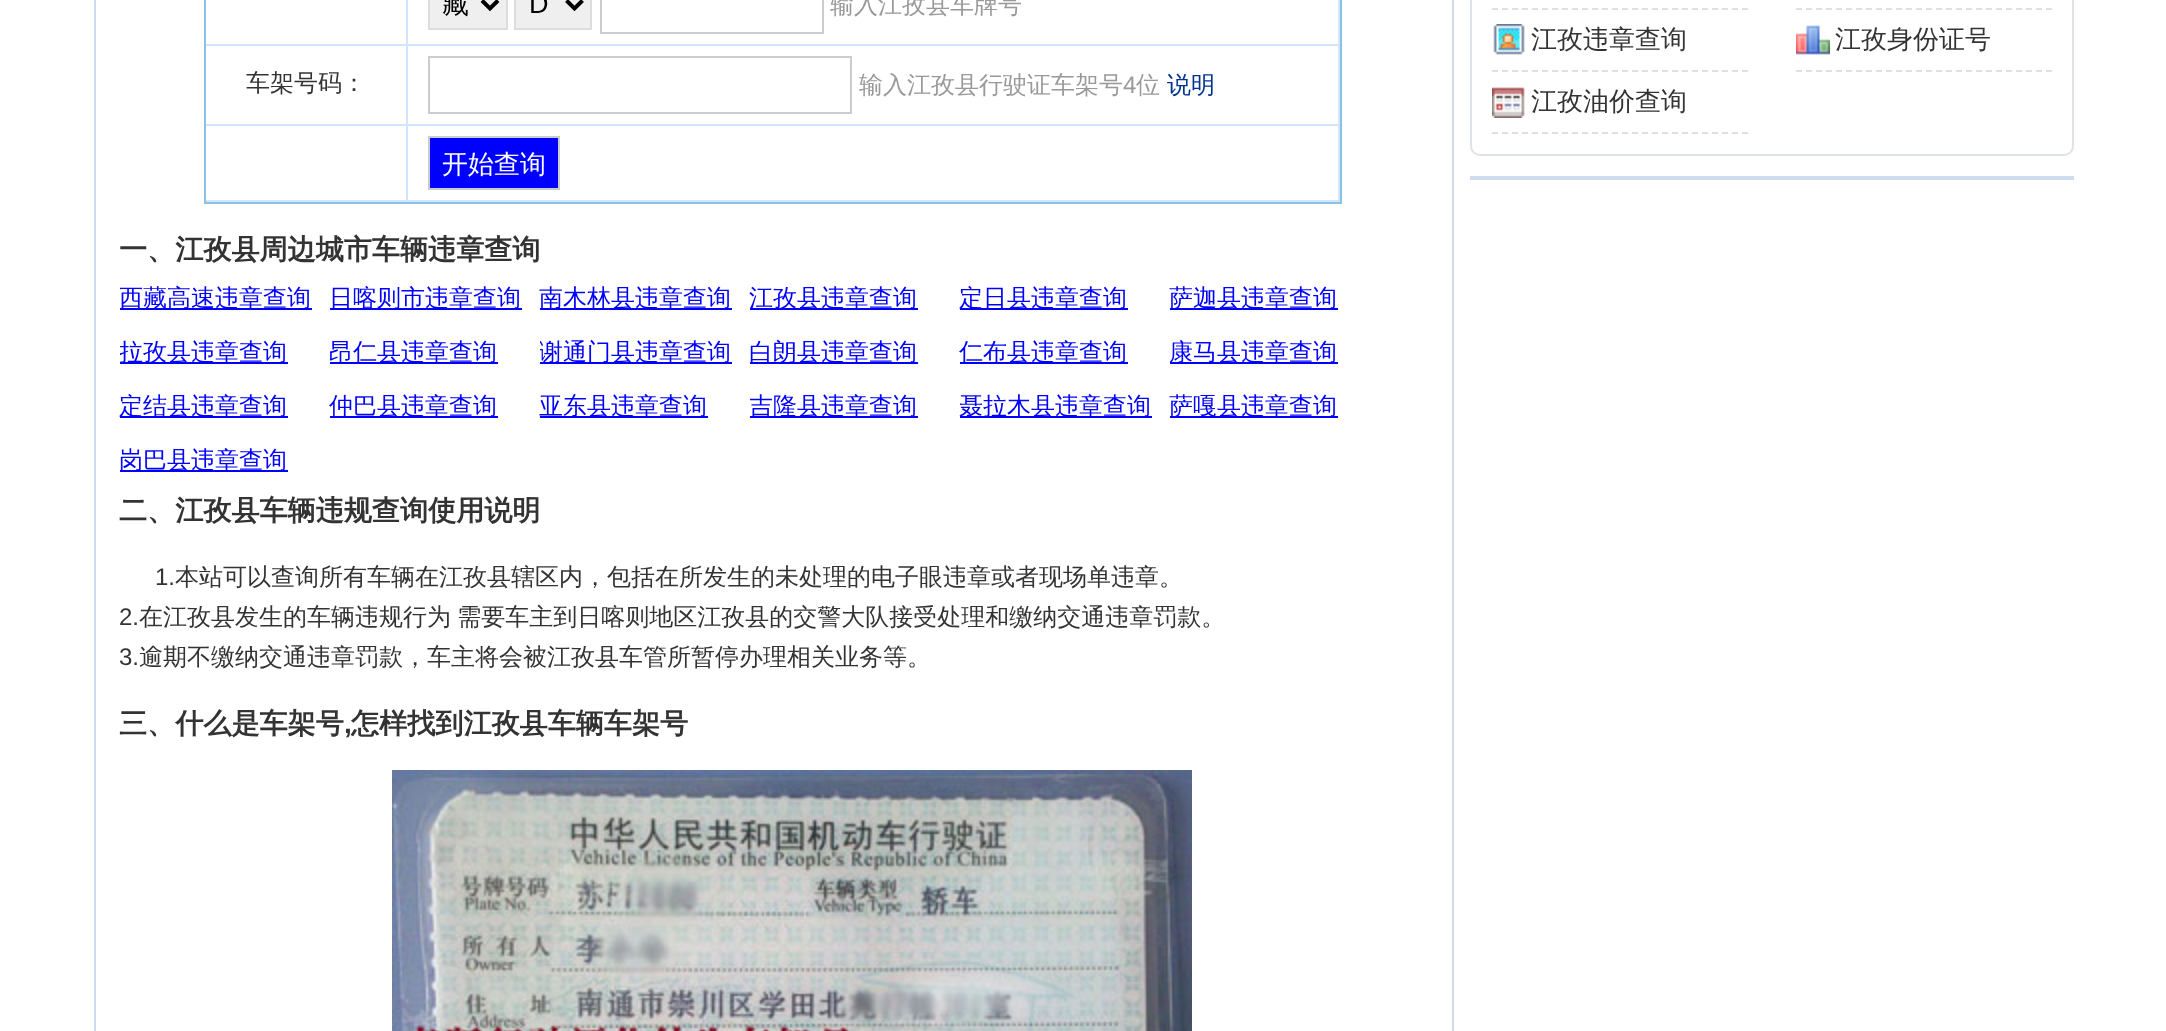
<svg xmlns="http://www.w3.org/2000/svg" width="2166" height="1031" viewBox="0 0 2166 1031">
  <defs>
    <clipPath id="clip1"><rect x="120" y="272" width="210" height="54"/></clipPath>
    <clipPath id="clip2"><rect x="120" y="326" width="210" height="54"/></clipPath>
    <clipPath id="clip3"><rect x="540" y="326" width="210" height="54"/></clipPath>
    <clipPath id="clip4"><rect x="750" y="380" width="210" height="54"/></clipPath>
  </defs>
  <rect width="100%" height="100%" fill="rgb(255,255,255)"/>
  <rect x="95" y="-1" width="1358" height="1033" fill="none" stroke="rgb(207,220,239)" stroke-width="2"/>
  <rect x="205" y="-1" width="1136" height="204" fill="none" stroke="rgb(139,193,231)" stroke-width="2"/>
  <rect x="406" y="0" width="2" height="202" fill="rgb(209,229,254)"/>
  <rect x="206" y="44" width="202" height="2" fill="rgb(209,229,254)"/>
  <rect x="1338" y="0" width="2" height="202" fill="rgb(209,229,254)"/>
  <rect x="408" y="44" width="932" height="2" fill="rgb(209,229,254)"/>
  <rect x="429" y="-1" width="78" height="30" fill="rgb(239,239,239)" stroke="rgb(221,221,221)" stroke-width="2"/>
  <path d="M482 .5L490 8.5L498 .5" fill="none" stroke="rgb(0,0,0)" stroke-width="4"/>
  <text x="442" y="13" font-family="WenQuanYi Zen Hei" font-size="27" font-weight="500" fill="rgb(0,0,0)">藏</text>
  <rect x="515" y="-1" width="76" height="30" fill="rgb(239,239,239)" stroke="rgb(221,221,221)" stroke-width="2"/>
  <path d="M566.5 .5L574.5 8.5L582.5 .5" fill="none" stroke="rgb(0,0,0)" stroke-width="4"/>
  <text x="529" y="13" font-family="Liberation Sans" font-size="27" fill="rgb(0,0,0)">D</text>
  <rect x="601" y="-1" width="222" height="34" fill="none" stroke="rgb(204,204,204)" stroke-width="2"/>
  <text x="830" y="13" font-family="WenQuanYi Zen Hei" font-size="24" font-weight="500" fill="rgb(153,153,153)">输入江孜县车牌号</text>
  <rect x="206" y="124" width="1134" height="2" fill="rgb(209,229,254)"/>
  <text x="246" y="91" font-family="WenQuanYi Zen Hei" font-size="24" font-weight="500" fill="rgb(51,51,51)">车架号码：</text>
  <rect x="429" y="57" width="422" height="56" fill="none" stroke="rgb(204,204,204)" stroke-width="2"/>
  <text x="859" y="93" font-family="WenQuanYi Zen Hei" font-size="24" font-weight="500" fill="rgb(153,153,153)">输入江孜县行驶证车架号</text>
  <text x="1123" y="93" font-family="Liberation Sans" font-size="24" fill="rgb(153,153,153)">4</text>
  <text x="1136" y="93" font-family="WenQuanYi Zen Hei" font-size="24" font-weight="500" fill="rgb(153,153,153)">位</text>
  <text x="1167" y="93" font-family="WenQuanYi Zen Hei" font-size="24" font-weight="500" fill="rgb(0,50,143)">说明</text>
  <rect x="429" y="137" width="130" height="52" fill="rgb(0,0,255)" stroke="rgb(204,204,204)" stroke-width="2"/>
  <text x="442" y="173" font-family="WenQuanYi Zen Hei" font-size="26" font-weight="500" fill="rgb(255,255,255)">开始查询</text>
  <rect x="206" y="200" width="1134" height="2" fill="rgb(209,229,254)"/>
  <text x="119" y="259" font-family="WenQuanYi Zen Hei" font-size="28.1" font-weight="bold" fill="rgb(51,51,51)">一、江孜县周边城市车辆违章查询</text>
  <rect x="120" y="308" width="192" height="2" fill="rgb(0,0,255)"/>
  <g clip-path="url(#clip1)">
    <text x="119" y="306" font-family="WenQuanYi Zen Hei" font-size="24" font-weight="500" fill="rgb(0,0,255)">西藏高速违章查询</text>
  </g>
  <rect x="330" y="308" width="192" height="2" fill="rgb(0,0,255)"/>
  <text x="329" y="306" font-family="WenQuanYi Zen Hei" font-size="24" font-weight="500" fill="rgb(0,0,255)">日喀则市违章查询</text>
  <rect x="540" y="308" width="192" height="2" fill="rgb(0,0,255)"/>
  <text x="539" y="306" font-family="WenQuanYi Zen Hei" font-size="24" font-weight="500" fill="rgb(0,0,255)">南木林县违章查询</text>
  <rect x="750" y="308" width="168" height="2" fill="rgb(0,0,255)"/>
  <text x="749" y="306" font-family="WenQuanYi Zen Hei" font-size="24" font-weight="500" fill="rgb(0,0,255)">江孜县违章查询</text>
  <rect x="960" y="308" width="168" height="2" fill="rgb(0,0,255)"/>
  <text x="959" y="306" font-family="WenQuanYi Zen Hei" font-size="24" font-weight="500" fill="rgb(0,0,255)">定日县违章查询</text>
  <rect x="1170" y="308" width="168" height="2" fill="rgb(0,0,255)"/>
  <text x="1169" y="306" font-family="WenQuanYi Zen Hei" font-size="24" font-weight="500" fill="rgb(0,0,255)">萨迦县违章查询</text>
  <rect x="120" y="362" width="168" height="2" fill="rgb(0,0,255)"/>
  <g clip-path="url(#clip2)">
    <text x="119" y="360" font-family="WenQuanYi Zen Hei" font-size="24" font-weight="500" fill="rgb(0,0,255)">拉孜县违章查询</text>
  </g>
  <rect x="330" y="362" width="168" height="2" fill="rgb(0,0,255)"/>
  <text x="329" y="360" font-family="WenQuanYi Zen Hei" font-size="24" font-weight="500" fill="rgb(0,0,255)">昂仁县违章查询</text>
  <rect x="540" y="362" width="192" height="2" fill="rgb(0,0,255)"/>
  <g clip-path="url(#clip3)">
    <text x="539" y="360" font-family="WenQuanYi Zen Hei" font-size="24" font-weight="500" fill="rgb(0,0,255)">谢通门县违章查询</text>
  </g>
  <rect x="750" y="362" width="168" height="2" fill="rgb(0,0,255)"/>
  <text x="749" y="360" font-family="WenQuanYi Zen Hei" font-size="24" font-weight="500" fill="rgb(0,0,255)">白朗县违章查询</text>
  <rect x="960" y="362" width="168" height="2" fill="rgb(0,0,255)"/>
  <text x="959" y="360" font-family="WenQuanYi Zen Hei" font-size="24" font-weight="500" fill="rgb(0,0,255)">仁布县违章查询</text>
  <rect x="1170" y="362" width="168" height="2" fill="rgb(0,0,255)"/>
  <text x="1169" y="360" font-family="WenQuanYi Zen Hei" font-size="24" font-weight="500" fill="rgb(0,0,255)">康马县违章查询</text>
  <rect x="120" y="416" width="168" height="2" fill="rgb(0,0,255)"/>
  <text x="119" y="414" font-family="WenQuanYi Zen Hei" font-size="24" font-weight="500" fill="rgb(0,0,255)">定结县违章查询</text>
  <rect x="330" y="416" width="168" height="2" fill="rgb(0,0,255)"/>
  <text x="329" y="414" font-family="WenQuanYi Zen Hei" font-size="24" font-weight="500" fill="rgb(0,0,255)">仲巴县违章查询</text>
  <rect x="540" y="416" width="168" height="2" fill="rgb(0,0,255)"/>
  <text x="539" y="414" font-family="WenQuanYi Zen Hei" font-size="24" font-weight="500" fill="rgb(0,0,255)">亚东县违章查询</text>
  <rect x="750" y="416" width="168" height="2" fill="rgb(0,0,255)"/>
  <g clip-path="url(#clip4)">
    <text x="749" y="414" font-family="WenQuanYi Zen Hei" font-size="24" font-weight="500" fill="rgb(0,0,255)">吉隆县违章查询</text>
  </g>
  <rect x="960" y="416" width="192" height="2" fill="rgb(0,0,255)"/>
  <text x="959" y="414" font-family="WenQuanYi Zen Hei" font-size="24" font-weight="500" fill="rgb(0,0,255)">聂拉木县违章查询</text>
  <rect x="1170" y="416" width="168" height="2" fill="rgb(0,0,255)"/>
  <text x="1169" y="414" font-family="WenQuanYi Zen Hei" font-size="24" font-weight="500" fill="rgb(0,0,255)">萨嘎县违章查询</text>
  <rect x="120" y="470" width="168" height="2" fill="rgb(0,0,255)"/>
  <text x="119" y="468" font-family="WenQuanYi Zen Hei" font-size="24" font-weight="500" fill="rgb(0,0,255)">岗巴县违章查询</text>
  <text x="119" y="520" font-family="WenQuanYi Zen Hei" font-size="28.1" font-weight="bold" fill="rgb(51,51,51)">二、江孜县车辆违规查询使用说明</text>
  <text x="155" y="585" font-family="Liberation Sans" font-size="24" fill="rgb(51,51,51)">1.</text>
  <text x="175" y="585" font-family="WenQuanYi Zen Hei" font-size="24" font-weight="500" fill="rgb(51,51,51)">本站可以查询所有车辆在江孜县辖区内，包括在所发生的未处理的电子眼违章或者现场单违章。</text>
  <text x="119" y="625" font-family="Liberation Sans" font-size="24" fill="rgb(51,51,51)">2.</text>
  <text x="139" y="625" word-spacing="-1" font-family="WenQuanYi Zen Hei" font-size="24" font-weight="500" fill="rgb(51,51,51)">在江孜县发生的车辆违规行为 需要车主到日喀则地区江孜县的交警大队接受处理和缴纳交通违章罚款。</text>
  <text x="119" y="665" font-family="Liberation Sans" font-size="24" fill="rgb(51,51,51)">3.</text>
  <text x="139" y="665" font-family="WenQuanYi Zen Hei" font-size="24" font-weight="500" fill="rgb(51,51,51)">逾期不缴纳交通违章罚款，车主将会被江孜县车管所暂停办理相关业务等。</text>
  <text x="119" y="733" font-family="WenQuanYi Zen Hei" font-size="28.1" font-weight="bold" fill="rgb(51,51,51)">三、什么是车架号</text>
  <text x="344" y="733" font-family="Liberation Sans" font-size="28.1" font-weight="bold" fill="rgb(51,51,51)">,</text>
  <text x="351" y="733" font-family="WenQuanYi Zen Hei" font-size="28.1" font-weight="bold" fill="rgb(51,51,51)">怎样找到江孜县车辆车架号</text>
  <image x="392" y="770" width="800" height="261" href="pic1.png"/>
  <path d="M1471-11H2073V146C2073 151 2069 155 2064 155H1480C1475 155 1471 151 1471 146Z" fill="none" stroke="rgb(223,226,232)" stroke-width="2"/>
  <path d="M1492 9H1748" fill="none" stroke="rgb(223,223,223)" stroke-width="2" stroke-dasharray="6 4"/>
  <path d="M1796 9H2052" fill="none" stroke="rgb(223,223,223)" stroke-width="2" stroke-dasharray="6 4"/>
  <image x="1493" y="24" width="32" height="31" href="pic2.png"/>
  <path d="M1492 71H1748" fill="none" stroke="rgb(223,223,223)" stroke-width="2" stroke-dasharray="6 4"/>
  <text x="1531" y="48" font-family="WenQuanYi Zen Hei" font-size="26" font-weight="500" fill="rgb(51,51,51)">江孜违章查询</text>
  <image x="1796" y="25" width="34" height="30" href="pic3.png"/>
  <path d="M1796 71H2052" fill="none" stroke="rgb(223,223,223)" stroke-width="2" stroke-dasharray="6 4"/>
  <text x="1835" y="48" font-family="WenQuanYi Zen Hei" font-size="26" font-weight="500" fill="rgb(51,51,51)">江孜身份证号</text>
  <image x="1492" y="87" width="33" height="31" href="pic4.png"/>
  <path d="M1492 133H1748" fill="none" stroke="rgb(223,223,223)" stroke-width="2" stroke-dasharray="6 4"/>
  <text x="1531" y="110" font-family="WenQuanYi Zen Hei" font-size="26" font-weight="500" fill="rgb(51,51,51)">江孜油价查询</text>
  <rect x="1470" y="176" width="604" height="4" fill="rgb(207,220,239)"/>
</svg>
